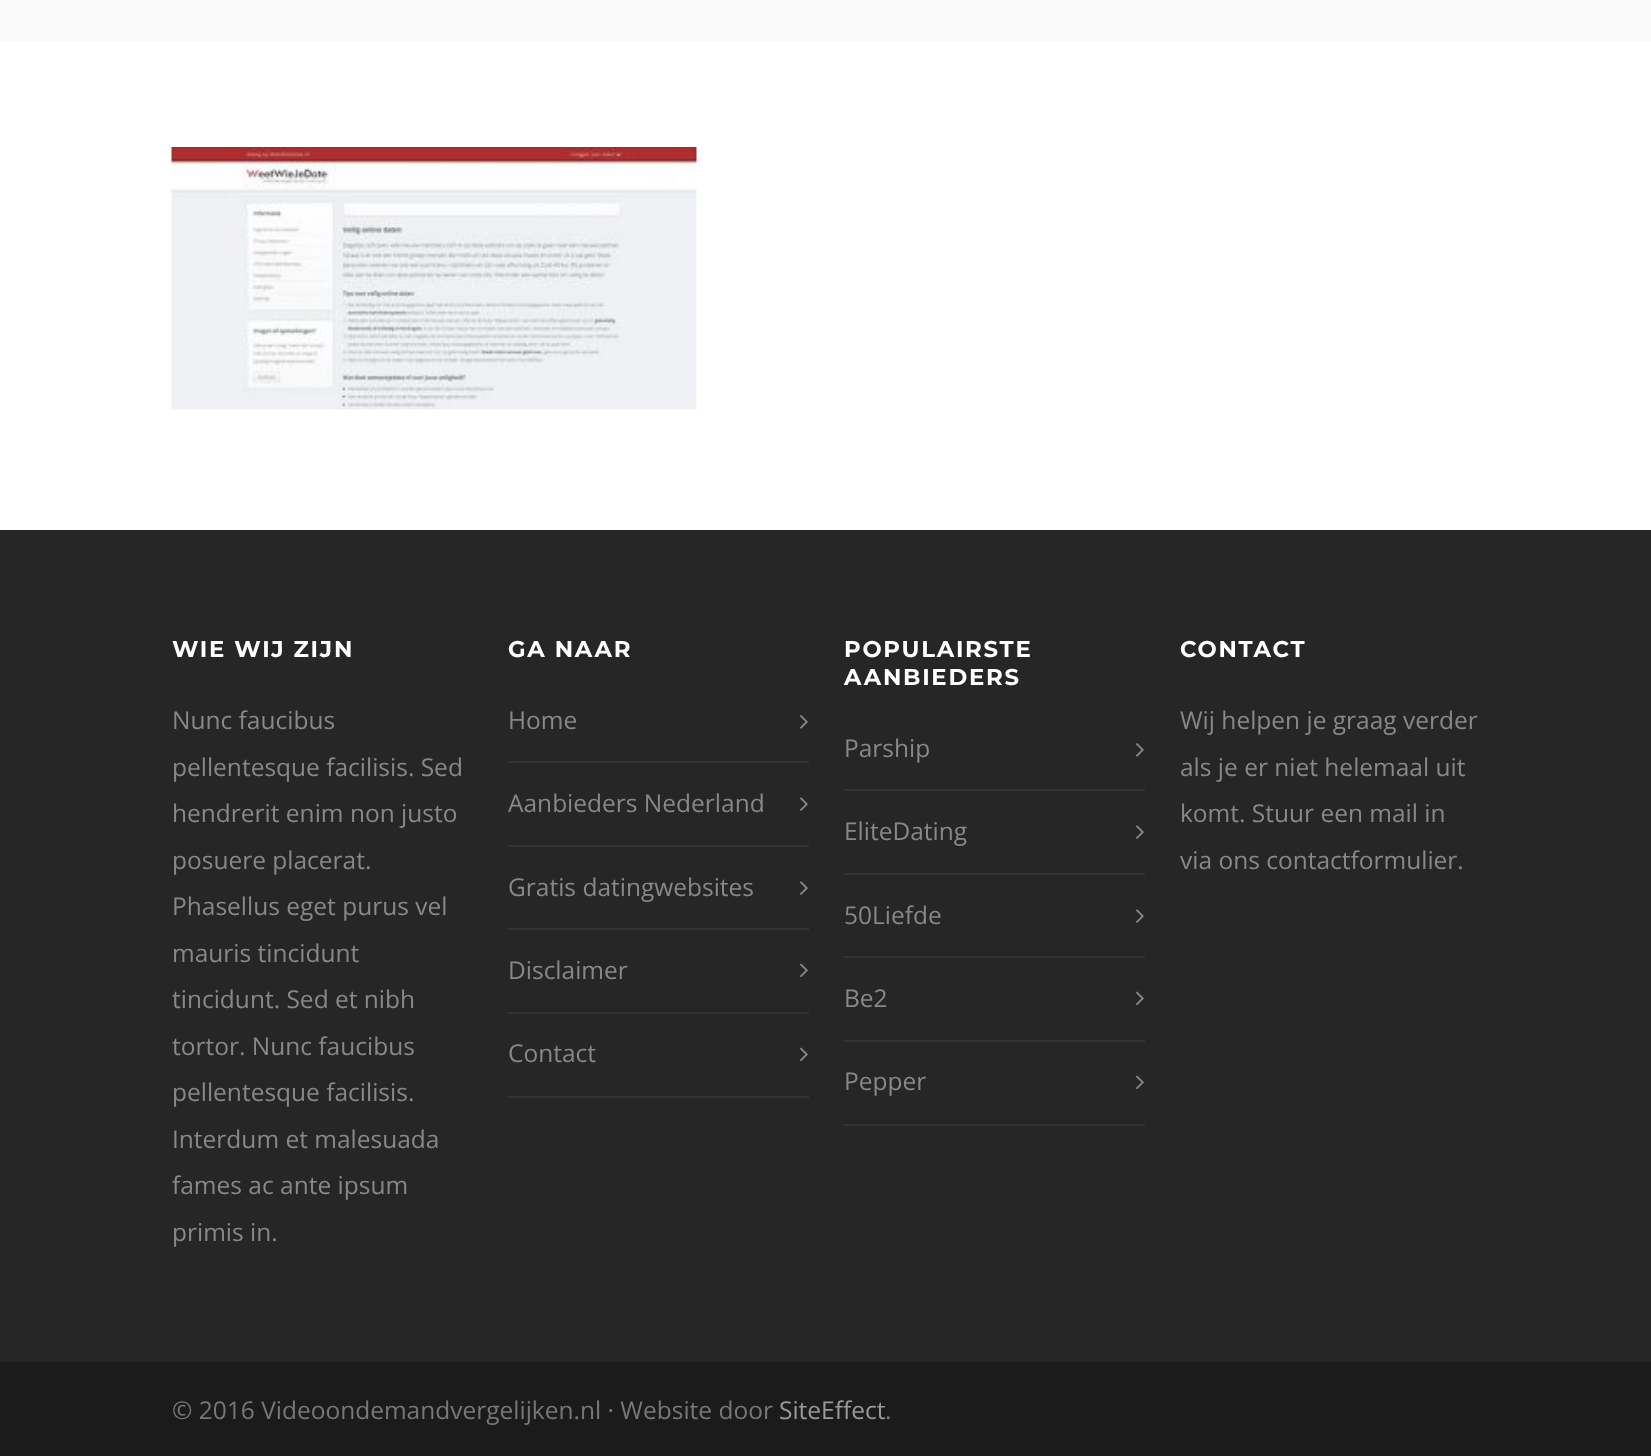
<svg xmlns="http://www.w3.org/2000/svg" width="1651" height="1456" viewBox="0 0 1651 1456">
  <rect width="100%" height="100%" fill="rgb(255,255,255)"/>
  <rect x="0" y="0" width="1651" height="42" fill="rgb(249,249,249)"/>
  <image x="171" y="147" width="526" height="263" href="pic1.png"/>
  <rect x="0" y="530" width="1651" height="832" fill="rgb(38,38,38)"/>
  <text x="172" y="657" font-family="Montserrat" font-size="22.75" font-weight="bold" letter-spacing="1.75" fill="rgb(255,255,255)">WIE WIJ ZIJN</text>
  <g font-family="Open Sans" font-size="24.5" fill="rgb(136,136,136)">
    <text>
      <tspan x="172" y="729">Nunc faucibus</tspan>
      <tspan x="172" y="776">pellentesque facilisis. Sed</tspan>
      <tspan x="172" y="822">hendrerit enim non justo</tspan>
      <tspan x="172" y="869">posuere placerat.</tspan>
      <tspan x="172" y="915">Phasellus eget purus vel</tspan>
      <tspan x="172" y="962">mauris tincidunt</tspan>
      <tspan x="172" y="1008">tincidunt. Sed et nibh</tspan>
      <tspan x="172" y="1055">tortor. Nunc faucibus</tspan>
      <tspan x="172" y="1101">pellentesque facilisis.</tspan>
      <tspan x="172" y="1148">Interdum et malesuada</tspan>
      <tspan x="172" y="1194">fames ac ante ipsum</tspan>
      <tspan x="172" y="1241">primis in.</tspan>
    </text>
  </g>
  <text x="508" y="657" font-family="Montserrat" font-size="22.75" font-weight="bold" letter-spacing="1.75" fill="rgb(255,255,255)">GA NAAR</text>
  <rect x="508" y="761" width="301" height="2" fill="rgb(51,51,51)"/>
  <text x="508" y="729" font-family="Open Sans" font-size="24.5" fill="rgb(136,136,136)">Home</text>
  <image x="800" y="715" width="8" height="14" href="pic2.png"/>
  <rect x="508" y="845" width="301" height="2" fill="rgb(51,51,51)"/>
  <text x="508" y="812" font-family="Open Sans" font-size="24.5" fill="rgb(136,136,136)">Aanbieders Nederland</text>
  <image x="800" y="797" width="8" height="14" href="pic3.png"/>
  <rect x="508" y="928" width="301" height="2" fill="rgb(51,51,51)"/>
  <text x="508" y="896" font-family="Open Sans" font-size="24.5" fill="rgb(136,136,136)">Gratis datingwebsites</text>
  <image x="800" y="881" width="8" height="14" href="pic3.png"/>
  <rect x="508" y="1012" width="301" height="2" fill="rgb(51,51,51)"/>
  <text x="508" y="979" font-family="Open Sans" font-size="24.5" fill="rgb(136,136,136)">Disclaimer</text>
  <image x="800" y="963" width="8" height="15" href="pic4.png"/>
  <rect x="508" y="1096" width="301" height="2" fill="rgb(51,51,51)"/>
  <text x="508" y="1062" font-family="Open Sans" font-size="24.5" fill="rgb(136,136,136)">Contact</text>
  <image x="800" y="1047" width="8" height="15" href="pic4.png"/>
  <g font-family="Montserrat" font-size="22.75" font-weight="bold" letter-spacing="1.75" fill="rgb(255,255,255)">
    <text>
      <tspan x="844" y="657">POPULAIRSTE</tspan>
      <tspan x="844" y="685">AANBIEDERS</tspan>
    </text>
  </g>
  <rect x="844" y="789" width="301" height="2" fill="rgb(51,51,51)"/>
  <text x="844" y="757" font-family="Open Sans" font-size="24.5" fill="rgb(136,136,136)">Parship</text>
  <image x="1136" y="743" width="8" height="14" href="pic2.png"/>
  <rect x="844" y="873" width="301" height="2" fill="rgb(51,51,51)"/>
  <text x="844" y="840" font-family="Open Sans" font-size="24.5" fill="rgb(136,136,136)">EliteDating</text>
  <image x="1136" y="825" width="8" height="14" href="pic3.png"/>
  <rect x="844" y="956" width="301" height="2" fill="rgb(51,51,51)"/>
  <text x="844" y="924" font-family="Open Sans" font-size="24.5" fill="rgb(136,136,136)">50Liefde</text>
  <image x="1136" y="909" width="8" height="14" href="pic3.png"/>
  <rect x="844" y="1040" width="301" height="2" fill="rgb(51,51,51)"/>
  <text x="844" y="1007" font-family="Open Sans" font-size="24.5" fill="rgb(136,136,136)">Be2</text>
  <image x="1136" y="991" width="8" height="15" href="pic4.png"/>
  <rect x="844" y="1124" width="301" height="2" fill="rgb(51,51,51)"/>
  <text x="844" y="1090" font-family="Open Sans" font-size="24.5" fill="rgb(136,136,136)">Pepper</text>
  <image x="1136" y="1075" width="8" height="15" href="pic4.png"/>
  <text x="1180" y="657" font-family="Montserrat" font-size="22.75" font-weight="bold" letter-spacing="1.75" fill="rgb(255,255,255)">CONTACT</text>
  <g font-family="Open Sans" font-size="24.5" fill="rgb(136,136,136)">
    <text>
      <tspan x="1180" y="729">Wij helpen je graag verder</tspan>
      <tspan x="1180" y="776">als je er niet helemaal uit</tspan>
      <tspan x="1180" y="822">komt. Stuur een mail in</tspan>
      <tspan x="1180" y="869">via ons contactformulier.</tspan>
    </text>
  </g>
  <rect x="0" y="1362" width="1651" height="94" fill="rgb(27,27,27)"/>
  <text x="172" y="1419" font-family="Open Sans" font-size="24.5" fill="rgb(119,119,119)">© 2016 Videoondemandvergelijken.nl · Website door</text>
  <text x="779" y="1419" font-family="Open Sans" font-size="24.5" fill="rgb(153,153,153)">SiteEffect</text>
  <text x="885" y="1419" font-family="Open Sans" font-size="24.5" fill="rgb(119,119,119)">.</text>
</svg>
